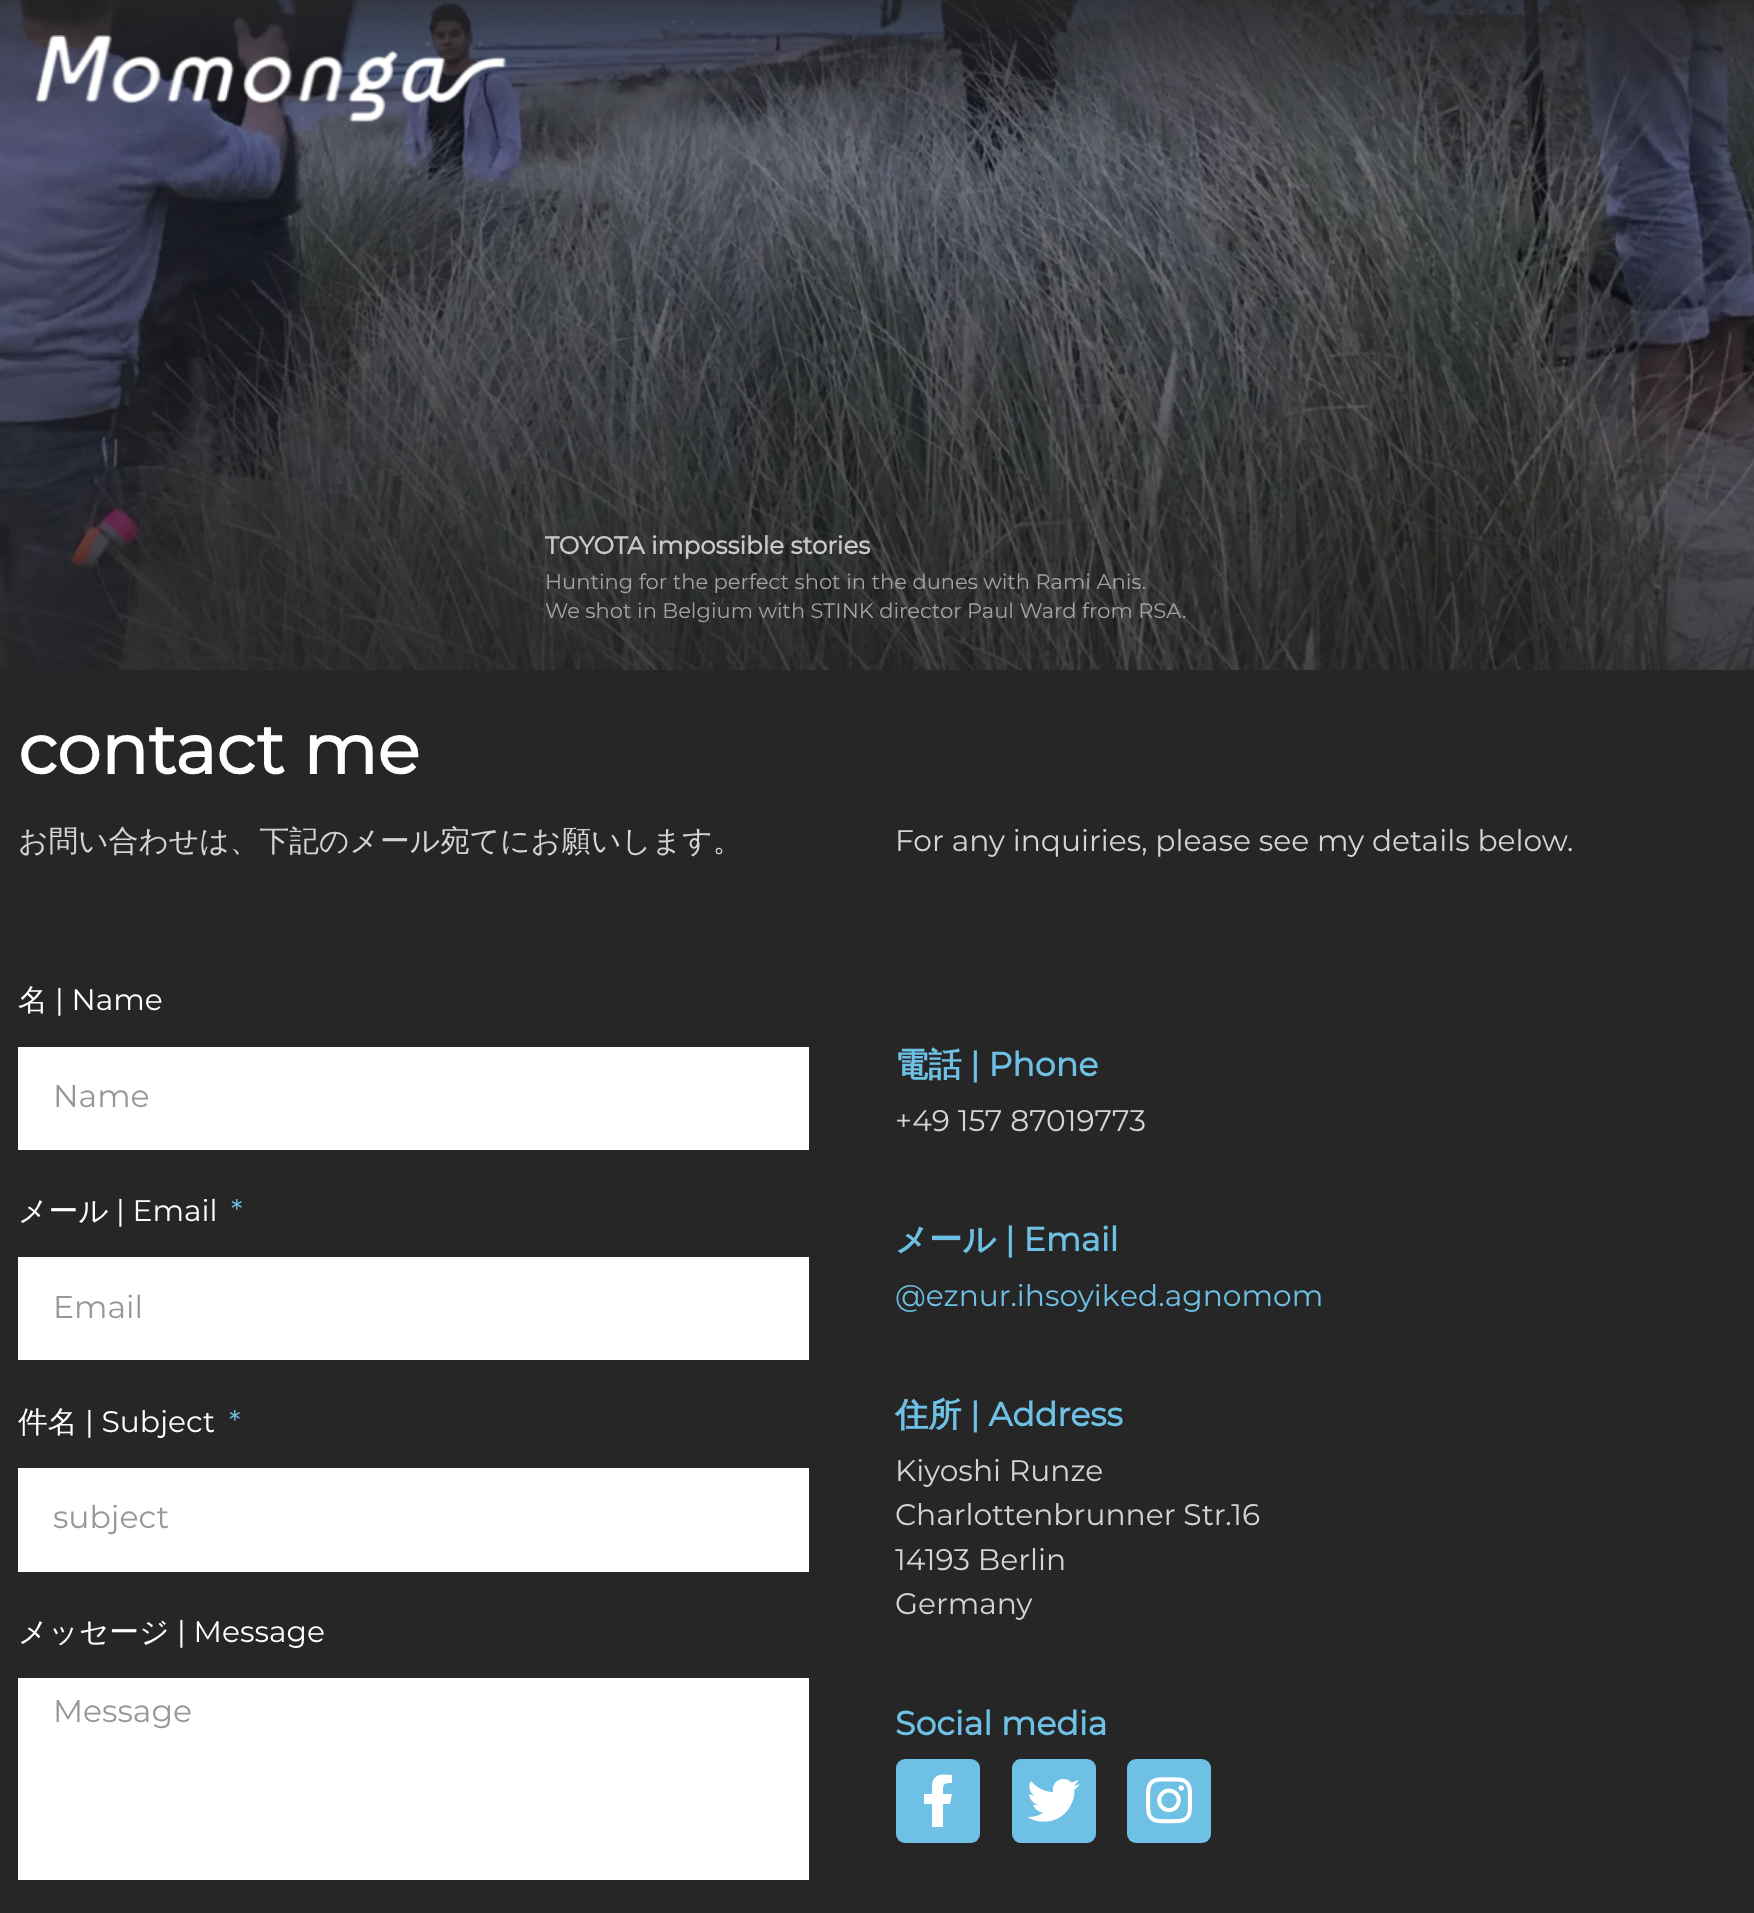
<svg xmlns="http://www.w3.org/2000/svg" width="1754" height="1913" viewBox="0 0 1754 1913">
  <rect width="100%" height="100%" fill="rgb(38,38,38)"/>
  <image x="0" y="0" width="1754" height="670" href="pic2.png"/>
  <image x="35" y="35" width="472" height="88" href="pic1.png"/>
  <text x="545" y="554" font-family="Montserrat" font-size="24.5" font-weight="bold" fill="rgb(201,201,201)">TOYOTA impossible stories</text>
  <g font-family="Montserrat" font-size="21" font-weight="100" fill="rgb(163,163,163)">
    <text>
      <tspan x="545" y="589">Hunting for the perfect shot in the dunes with Rami Anis.</tspan>
      <tspan x="545" y="618">We shot in Belgium with STINK director Paul Ward from RSA.</tspan>
    </text>
  </g>
  <text x="18" y="774" font-family="Montserrat" font-size="70" font-weight="bold" fill="rgb(255,255,255)">contact me</text>
  <text x="18" y="851" font-family="WenQuanYi Zen Hei" font-size="29.75" font-weight="500" fill="rgb(212,212,212)">お問い合わせは、下記のメール宛てにお願いします。</text>
  <text x="895" y="851" font-family="Montserrat" font-size="29.75" font-weight="100" fill="rgb(212,212,212)">For any inquiries, please see my details below.</text>
  <text x="18" y="1010" font-family="WenQuanYi Zen Hei" font-size="29.75" font-weight="500" fill="rgb(255,255,255)">名</text>
  <text x="55" y="1010" font-family="Montserrat" font-size="29.75" font-weight="100" fill="rgb(255,255,255)">| Name</text>
  <rect x="18" y="1047" width="791" height="103" fill="rgb(255,255,255)"/>
  <text x="53" y="1107" font-family="Montserrat" font-size="31.5" font-weight="100" fill="rgb(151,151,151)">Name</text>
  <text x="18" y="1221" font-family="WenQuanYi Zen Hei" font-size="29.75" font-weight="500" fill="rgb(255,255,255)">メール</text>
  <text x="116" y="1221" font-family="Montserrat" font-size="29.75" font-weight="100" fill="rgb(255,255,255)">| Email</text>
  <text x="231" y="1221" font-family="Montserrat" font-size="29.75" font-weight="100" fill="rgb(110,193,228)">*</text>
  <rect x="18" y="1257" width="791" height="103" fill="rgb(255,255,255)"/>
  <text x="53" y="1318" font-family="Montserrat" font-size="31.5" font-weight="100" fill="rgb(151,151,151)">Email</text>
  <text x="18" y="1432" font-family="WenQuanYi Zen Hei" font-size="29.75" font-weight="500" fill="rgb(255,255,255)">件名</text>
  <text x="85" y="1432" font-family="Montserrat" font-size="29.75" font-weight="100" fill="rgb(255,255,255)">| Subject</text>
  <text x="229" y="1432" font-family="Montserrat" font-size="29.75" font-weight="100" fill="rgb(110,193,228)">*</text>
  <rect x="18" y="1468" width="791" height="104" fill="rgb(255,255,255)"/>
  <text x="53" y="1528" font-family="Montserrat" font-size="31.5" font-weight="100" fill="rgb(151,151,151)">subject</text>
  <text x="18" y="1642" font-family="WenQuanYi Zen Hei" font-size="29.75" font-weight="500" fill="rgb(255,255,255)">メッセージ</text>
  <text x="177" y="1642" font-family="Montserrat" font-size="29.75" font-weight="100" fill="rgb(255,255,255)">| Message</text>
  <rect x="18" y="1678" width="791" height="202" fill="rgb(255,255,255)"/>
  <text x="53" y="1722" font-family="Montserrat" font-size="31.5" font-weight="100" fill="rgb(151,151,151)">Message</text>
  <text x="895" y="1076" font-family="WenQuanYi Zen Hei" font-size="33.25" font-weight="bold" fill="rgb(110,193,228)">電話</text>
  <text x="970" y="1076" font-family="Montserrat" font-size="33.25" font-weight="bold" fill="rgb(110,193,228)">| Phone</text>
  <text x="895" y="1131" font-family="Montserrat" font-size="29.75" font-weight="100" fill="rgb(212,212,212)">+49 157 87019773</text>
  <text x="895" y="1251" font-family="WenQuanYi Zen Hei" font-size="33.25" font-weight="bold" fill="rgb(110,193,228)">メール</text>
  <text x="1005" y="1251" font-family="Montserrat" font-size="33.25" font-weight="bold" fill="rgb(110,193,228)">| Email</text>
  <g font-family="Montserrat" font-size="29.75" font-weight="100" fill="rgb(110,193,228)">
    <text x="895" y="1306">@eznur.ihsoyik</text>
    <text x="1120" y="1306">ed.agnomom</text>
  </g>
  <text x="895" y="1426" font-family="WenQuanYi Zen Hei" font-size="33.25" font-weight="bold" fill="rgb(110,193,228)">住所</text>
  <text x="970" y="1426" font-family="Montserrat" font-size="33.25" font-weight="bold" fill="rgb(110,193,228)">| Address</text>
  <g font-family="Montserrat" font-size="29.75" font-weight="100" fill="rgb(212,212,212)">
    <text>
      <tspan x="895" y="1481">Kiyoshi Runze</tspan>
      <tspan x="895" y="1525">Charlottenbrunner Str.16</tspan>
      <tspan x="895" y="1570">14193 Berlin</tspan>
      <tspan x="895" y="1614">Germany</tspan>
    </text>
  </g>
  <text x="895" y="1735" font-family="Montserrat" font-size="33.25" font-weight="bold" fill="rgb(110,193,228)">Social media</text>
  <rect x="896" y="1759" width="84" height="84" rx="9" fill="rgb(110,193,228)"/>
  <path d="M950 1804H943V1827H932V1804H924V1794H932V1784C934 1773 944 1774 952 1775V1783C942 1783 943 1785 943 1794H952Z" fill="rgb(255,255,255)"/>
  <rect x="1012" y="1759" width="84" height="84" rx="9" fill="rgb(110,193,228)"/>
  <image x="1027" y="1779" width="53" height="43" href="pic3.png"/>
  <rect x="1127" y="1759" width="84" height="84" rx="9" fill="rgb(110,193,228)"/>
  <image x="1146" y="1777" width="47" height="47" href="pic4.png"/>
</svg>
